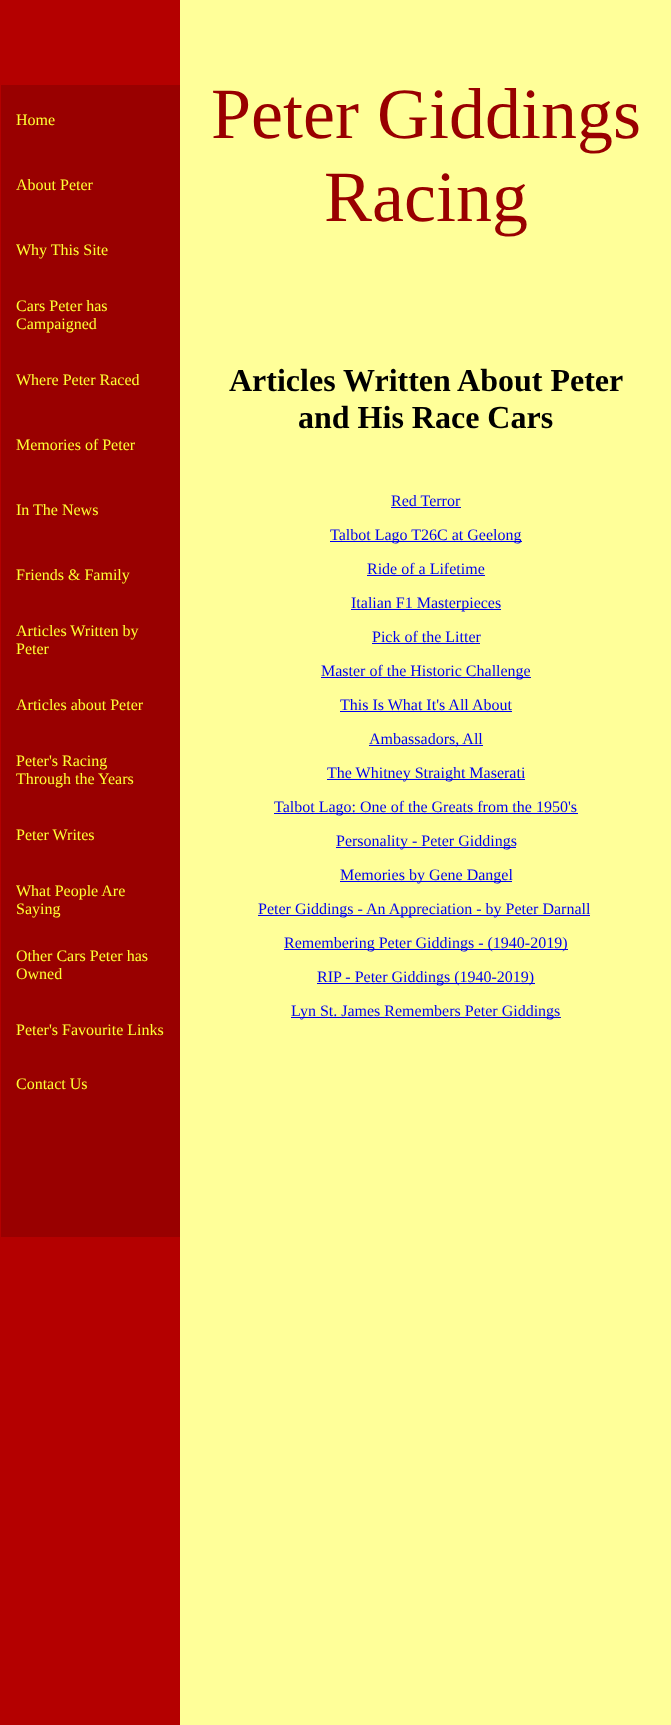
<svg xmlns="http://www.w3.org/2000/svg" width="671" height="1725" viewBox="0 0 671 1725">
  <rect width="100%" height="100%" fill="rgb(255,255,153)"/>
  <rect x="0" y="0" width="180" height="1725" fill="rgb(180,0,0)"/>
  <rect x="1" y="85" width="179" height="1152" fill="rgb(153,0,0)"/>
  <g font-family="Liberation Serif" font-size="16" fill="rgb(255,255,51)">
    <text x="16" y="125">Home</text>
    <text x="16" y="190">About Peter</text>
    <text x="16" y="255">Why This Site</text>
    <text>
      <tspan x="16" y="311">Cars Peter has</tspan>
      <tspan x="16" y="329">Campaigned</tspan>
    </text>
    <text x="16" y="385">Where Peter Raced</text>
    <text x="16" y="450">Memories of Peter</text>
    <text x="16" y="515">In The News</text>
    <text x="16" y="580">Friends &amp; Family</text>
    <text>
      <tspan x="16" y="636">Articles Written by</tspan>
      <tspan x="16" y="654">Peter</tspan>
    </text>
    <text x="16" y="710">Articles about Peter</text>
    <text>
      <tspan x="16" y="766">Peter's Racing</tspan>
      <tspan x="16" y="784">Through the Years</tspan>
    </text>
    <text x="16" y="840">Peter Writes</text>
    <text>
      <tspan x="16" y="896">What People Are</tspan>
      <tspan x="16" y="914">Saying</tspan>
    </text>
    <text>
      <tspan x="16" y="961">Other Cars Peter has</tspan>
      <tspan x="16" y="979">Owned</tspan>
    </text>
    <text x="16" y="1035">Peter's Favourite Links</text>
    <text x="16" y="1089">Contact Us</text>
  </g>
  <g font-family="Liberation Serif" font-size="72" fill="rgb(153,0,0)">
    <text x="211" y="138">Peter Giddings</text>
    <text x="324" y="221">Racing</text>
  </g>
  <g font-family="Liberation Serif" font-size="32" font-weight="bold" fill="rgb(0,0,0)">
    <text x="229" y="391">Articles Written About Peter</text>
    <text x="298" y="428">and His Race Cars</text>
  </g>
  <text x="391" y="506" font-family="Liberation Serif" font-size="16" fill="rgb(0,0,238)">Red Terror</text>
  <rect x="391" y="507" width="70" height="1" fill="rgb(0,0,238)"/>
  <rect x="330" y="541" width="192" height="1" fill="rgb(0,0,238)"/>
  <g font-family="Liberation Serif" font-size="16" fill="rgb(0,0,238)">
    <text x="330" y="540">Talbot Lago T26C at Geelong</text>
    <text x="367" y="574">Ride of a Lifetime</text>
  </g>
  <rect x="367" y="575" width="118" height="1" fill="rgb(0,0,238)"/>
  <rect x="351" y="609" width="150" height="1" fill="rgb(0,0,238)"/>
  <g font-family="Liberation Serif" font-size="16" fill="rgb(0,0,238)">
    <text x="351" y="608">Italian F1 Masterpieces</text>
    <text x="372" y="642">Pick of the Litter</text>
  </g>
  <rect x="372" y="643" width="108" height="1" fill="rgb(0,0,238)"/>
  <rect x="321" y="677" width="210" height="1" fill="rgb(0,0,238)"/>
  <g font-family="Liberation Serif" font-size="16" fill="rgb(0,0,238)">
    <text x="321" y="676">Master of the Historic Challenge</text>
    <text x="340" y="710">This Is What It's All About</text>
  </g>
  <rect x="340" y="711" width="172" height="1" fill="rgb(0,0,238)"/>
  <rect x="369" y="745" width="114" height="1" fill="rgb(0,0,238)"/>
  <text x="369" y="744" font-family="Liberation Serif" font-size="16" fill="rgb(0,0,238)">Ambassadors, All</text>
  <rect x="327" y="779" width="198" height="1" fill="rgb(0,0,238)"/>
  <text x="327" y="778" font-family="Liberation Serif" font-size="16" fill="rgb(0,0,238)">The Whitney Straight Maserati</text>
  <rect x="274" y="813" width="304" height="1" fill="rgb(0,0,238)"/>
  <text x="274" y="812" font-family="Liberation Serif" font-size="16" fill="rgb(0,0,238)">Talbot Lago: One of the Greats from the 1950's</text>
  <rect x="336" y="847" width="180" height="1" fill="rgb(0,0,238)"/>
  <text x="336" y="846" font-family="Liberation Serif" font-size="16" fill="rgb(0,0,238)">Personality - Peter Giddings</text>
  <rect x="340" y="881" width="172" height="1" fill="rgb(0,0,238)"/>
  <text x="340" y="880" font-family="Liberation Serif" font-size="16" fill="rgb(0,0,238)">Memories by Gene Dangel</text>
  <rect x="258" y="915" width="332" height="1" fill="rgb(0,0,238)"/>
  <text x="258" y="914" font-family="Liberation Serif" font-size="16" fill="rgb(0,0,238)">Peter Giddings - An Appreciation - by Peter Darnall</text>
  <rect x="284" y="949" width="284" height="1" fill="rgb(0,0,238)"/>
  <text x="284" y="948" font-family="Liberation Serif" font-size="16" fill="rgb(0,0,238)">Remembering Peter Giddings - (1940-2019)</text>
  <rect x="317" y="983" width="218" height="1" fill="rgb(0,0,238)"/>
  <text x="317" y="982" font-family="Liberation Serif" font-size="16" fill="rgb(0,0,238)">RIP - Peter Giddings (1940-2019)</text>
  <rect x="291" y="1017" width="270" height="1" fill="rgb(0,0,238)"/>
  <text x="291" y="1016" font-family="Liberation Serif" font-size="16" fill="rgb(0,0,238)">Lyn St. James Remembers Peter Giddings</text>
</svg>
